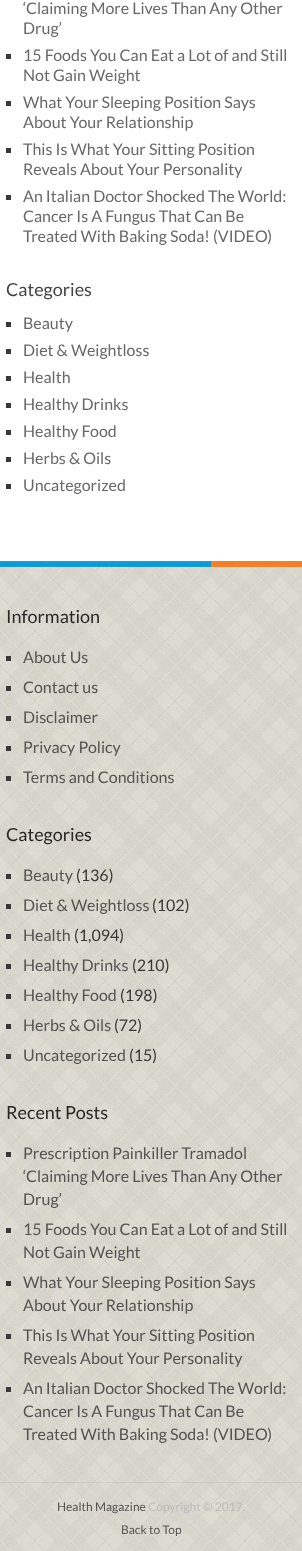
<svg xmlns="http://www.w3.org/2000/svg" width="302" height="1551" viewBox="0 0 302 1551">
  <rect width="100%" height="100%" fill="rgb(255,255,255)"/>
  <g font-family="Lato" font-size="16" fill="rgb(105,104,104)">
    <text>
      <tspan x="23" y="14">‘Claiming More Lives Than Any Other</tspan>
      <tspan x="23" y="34">Drug’</tspan>
    </text>
  </g>
  <rect x="6" y="54" width="5" height="5" fill="rgb(56,56,56)"/>
  <g font-family="Lato" font-size="16" fill="rgb(105,104,104)">
    <text>
      <tspan x="23" y="61">15 Foods You Can Eat a Lot of and Still</tspan>
      <tspan x="23" y="81">Not Gain Weight</tspan>
    </text>
  </g>
  <rect x="6" y="101" width="5" height="5" fill="rgb(56,56,56)"/>
  <g font-family="Lato" font-size="16" fill="rgb(105,104,104)">
    <text>
      <tspan x="23" y="108">What Your Sleeping Position Says</tspan>
      <tspan x="23" y="128">About Your Relationship</tspan>
    </text>
  </g>
  <rect x="6" y="148" width="5" height="5" fill="rgb(56,56,56)"/>
  <g font-family="Lato" font-size="16" fill="rgb(105,104,104)">
    <text>
      <tspan x="23" y="155">This Is What Your Sitting Position</tspan>
      <tspan x="23" y="175">Reveals About Your Personality</tspan>
    </text>
  </g>
  <rect x="6" y="195" width="5" height="5" fill="rgb(56,56,56)"/>
  <g font-family="Lato" font-size="16" fill="rgb(105,104,104)">
    <text>
      <tspan x="23" y="202">An Italian Doctor Shocked The World:</tspan>
      <tspan x="23" y="222">Cancer Is A Fungus That Can Be</tspan>
      <tspan x="23" y="242">Treated With Baking Soda! (VIDEO)</tspan>
    </text>
  </g>
  <text x="6" y="296" font-family="Lato" font-size="18" fill="rgb(68,68,68)">Categories</text>
  <rect x="6" y="322" width="5" height="5" fill="rgb(56,56,56)"/>
  <text x="23" y="329" font-family="Lato" font-size="16" fill="rgb(105,104,104)">Beauty</text>
  <rect x="6" y="349" width="5" height="5" fill="rgb(56,56,56)"/>
  <text x="23" y="356" font-family="Lato" font-size="16" fill="rgb(105,104,104)">Diet &amp; Weightloss</text>
  <rect x="6" y="376" width="5" height="5" fill="rgb(56,56,56)"/>
  <text x="23" y="383" font-family="Lato" font-size="16" fill="rgb(105,104,104)">Health</text>
  <rect x="6" y="403" width="5" height="5" fill="rgb(56,56,56)"/>
  <text x="23" y="410" font-family="Lato" font-size="16" fill="rgb(105,104,104)">Healthy Drinks</text>
  <rect x="6" y="430" width="5" height="5" fill="rgb(56,56,56)"/>
  <text x="23" y="437" font-family="Lato" font-size="16" fill="rgb(105,104,104)">Healthy Food</text>
  <rect x="6" y="457" width="5" height="5" fill="rgb(56,56,56)"/>
  <text x="23" y="464" font-family="Lato" font-size="16" fill="rgb(105,104,104)">Herbs &amp; Oils</text>
  <rect x="6" y="484" width="5" height="5" fill="rgb(56,56,56)"/>
  <text x="23" y="491" font-family="Lato" font-size="16" fill="rgb(105,104,104)">Uncategorized</text>
  <image x="0" y="561" width="302" height="990" href="pic1.png"/>
  <image x="0" y="561" width="302" height="6" href="pic2.png"/>
  <text x="6" y="623" font-family="Lato" font-size="18" fill="rgb(38,38,38)">Information</text>
  <rect x="6" y="656" width="5" height="5" fill="rgb(56,56,56)"/>
  <text x="23" y="663" font-family="Lato" font-size="16" fill="rgb(83,83,83)">About Us</text>
  <rect x="6" y="686" width="5" height="5" fill="rgb(56,56,56)"/>
  <text x="23" y="693" font-family="Lato" font-size="16" fill="rgb(83,83,83)">Contact us</text>
  <rect x="6" y="716" width="5" height="5" fill="rgb(56,56,56)"/>
  <text x="23" y="723" font-family="Lato" font-size="16" fill="rgb(83,83,83)">Disclaimer</text>
  <rect x="6" y="746" width="5" height="5" fill="rgb(56,56,56)"/>
  <text x="23" y="753" font-family="Lato" font-size="16" fill="rgb(83,83,83)">Privacy Policy</text>
  <rect x="6" y="776" width="5" height="5" fill="rgb(56,56,56)"/>
  <text x="23" y="783" font-family="Lato" font-size="16" fill="rgb(83,83,83)">Terms and Conditions</text>
  <text x="6" y="841" font-family="Lato" font-size="18" fill="rgb(38,38,38)">Categories</text>
  <rect x="6" y="874" width="5" height="5" fill="rgb(56,56,56)"/>
  <text x="23" y="881" font-family="Lato" font-size="16" fill="rgb(83,83,83)">Beauty</text>
  <text x="76" y="881" font-family="Lato" font-size="16" fill="rgb(56,56,56)">(136)</text>
  <rect x="6" y="904" width="5" height="5" fill="rgb(56,56,56)"/>
  <text x="23" y="911" font-family="Lato" font-size="16" fill="rgb(83,83,83)">Diet &amp; Weightloss</text>
  <text x="152" y="911" font-family="Lato" font-size="16" fill="rgb(56,56,56)">(102)</text>
  <rect x="6" y="934" width="5" height="5" fill="rgb(56,56,56)"/>
  <text x="23" y="941" font-family="Lato" font-size="16" fill="rgb(83,83,83)">Health</text>
  <text x="74" y="941" font-family="Lato" font-size="16" fill="rgb(56,56,56)">(1,094)</text>
  <rect x="6" y="964" width="5" height="5" fill="rgb(56,56,56)"/>
  <text x="23" y="971" font-family="Lato" font-size="16" fill="rgb(83,83,83)">Healthy Drinks</text>
  <text x="132" y="971" font-family="Lato" font-size="16" fill="rgb(56,56,56)">(210)</text>
  <rect x="6" y="994" width="5" height="5" fill="rgb(56,56,56)"/>
  <text x="23" y="1001" font-family="Lato" font-size="16" fill="rgb(83,83,83)">Healthy Food</text>
  <text x="120" y="1001" font-family="Lato" font-size="16" fill="rgb(56,56,56)">(198)</text>
  <rect x="6" y="1024" width="5" height="5" fill="rgb(56,56,56)"/>
  <text x="23" y="1031" font-family="Lato" font-size="16" fill="rgb(83,83,83)">Herbs &amp; Oils</text>
  <text x="114" y="1031" font-family="Lato" font-size="16" fill="rgb(56,56,56)">(72)</text>
  <rect x="6" y="1054" width="5" height="5" fill="rgb(56,56,56)"/>
  <text x="23" y="1061" font-family="Lato" font-size="16" fill="rgb(83,83,83)">Uncategorized</text>
  <text x="129" y="1061" font-family="Lato" font-size="16" fill="rgb(56,56,56)">(15)</text>
  <text x="6" y="1119" font-family="Lato" font-size="18" fill="rgb(38,38,38)">Recent Posts</text>
  <rect x="6" y="1152" width="5" height="5" fill="rgb(56,56,56)"/>
  <g font-family="Lato" font-size="16" fill="rgb(83,83,83)">
    <text>
      <tspan x="23" y="1159">Prescription Painkiller Tramadol</tspan>
      <tspan x="23" y="1182">‘Claiming More Lives Than Any Other</tspan>
      <tspan x="23" y="1205">Drug’</tspan>
    </text>
  </g>
  <rect x="6" y="1228" width="5" height="5" fill="rgb(56,56,56)"/>
  <g font-family="Lato" font-size="16" fill="rgb(83,83,83)">
    <text>
      <tspan x="23" y="1235">15 Foods You Can Eat a Lot of and Still</tspan>
      <tspan x="23" y="1258">Not Gain Weight</tspan>
    </text>
  </g>
  <rect x="6" y="1281" width="5" height="5" fill="rgb(56,56,56)"/>
  <g font-family="Lato" font-size="16" fill="rgb(83,83,83)">
    <text>
      <tspan x="23" y="1288">What Your Sleeping Position Says</tspan>
      <tspan x="23" y="1311">About Your Relationship</tspan>
    </text>
  </g>
  <rect x="6" y="1334" width="5" height="5" fill="rgb(56,56,56)"/>
  <g font-family="Lato" font-size="16" fill="rgb(83,83,83)">
    <text>
      <tspan x="23" y="1341">This Is What Your Sitting Position</tspan>
      <tspan x="23" y="1364">Reveals About Your Personality</tspan>
    </text>
  </g>
  <rect x="6" y="1387" width="5" height="5" fill="rgb(56,56,56)"/>
  <g font-family="Lato" font-size="16" fill="rgb(83,83,83)">
    <text>
      <tspan x="23" y="1394">An Italian Doctor Shocked The World:</tspan>
      <tspan x="23" y="1417">Cancer Is A Fungus That Can Be</tspan>
      <tspan x="23" y="1440">Treated With Baking Soda! (VIDEO)</tspan>
    </text>
  </g>
  <rect x="0" y="1482" width="302" height="1" fill="rgba(0,0,0,0.06)"/>
  <text x="57" y="1511" font-family="Lato" font-size="12" fill="rgb(83,83,83)">Health Magazine</text>
  <text x="148" y="1511" font-family="Lato" font-size="12" fill="rgb(187,187,187)">Copyright © 2017.</text>
  <text x="121" y="1534" font-family="Lato" font-size="12" fill="rgb(83,83,83)">Back to Top</text>
</svg>
